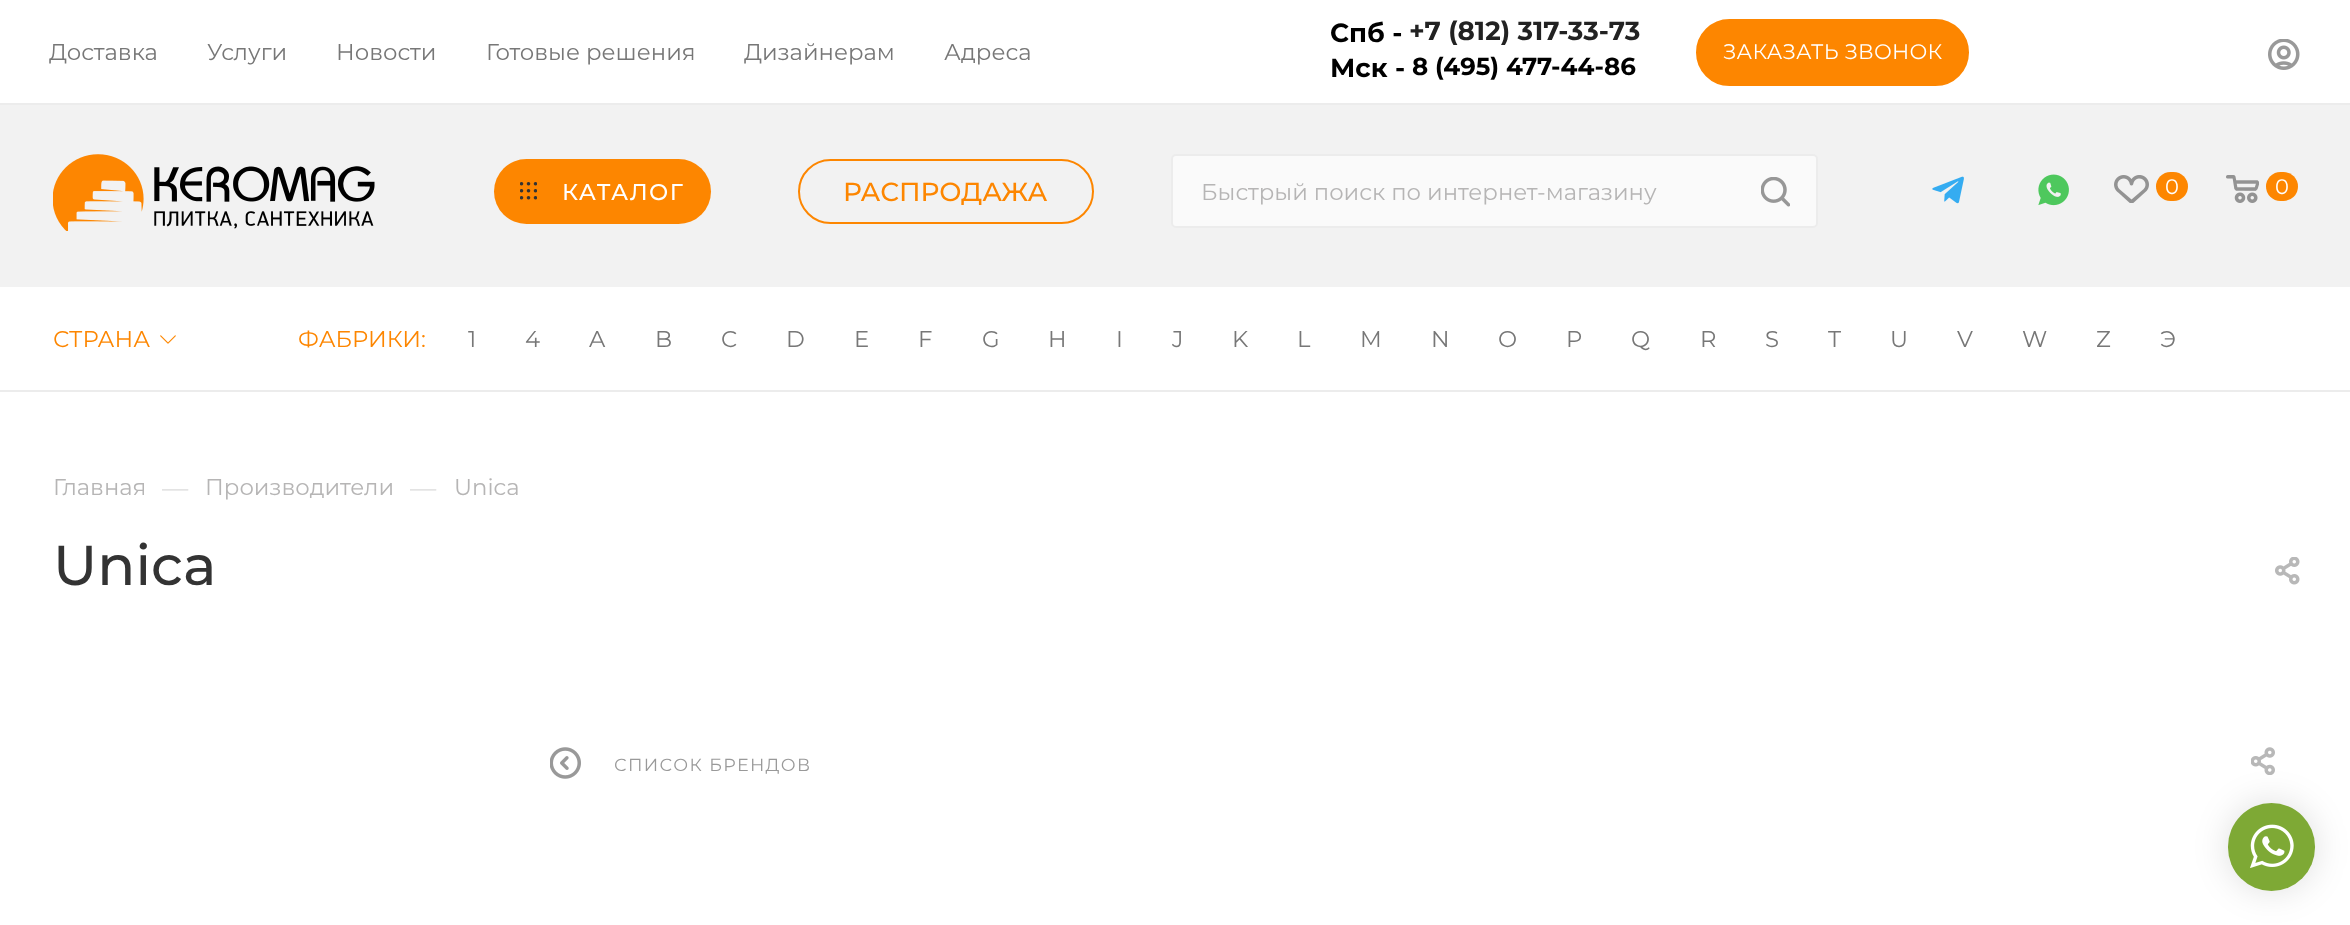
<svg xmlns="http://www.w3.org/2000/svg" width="2350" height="925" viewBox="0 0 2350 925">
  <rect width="100%" height="100%" fill="rgb(255,255,255)"/>
  <rect x="0" y="103" width="2350" height="2" fill="rgb(236,236,236)"/>
  <g font-family="Montserrat" font-size="22.75" fill="rgb(119,119,119)">
    <text x="49" y="60">Доставка</text>
    <text x="207" y="60">Услуги</text>
    <text x="336" y="60">Новости</text>
    <text x="486" y="60">Готовые решения</text>
    <text x="744" y="60">Дизайнерам</text>
    <text x="944" y="60">Адреса</text>
  </g>
  <text x="1330" y="42" font-family="Montserrat" font-size="26.25" font-weight="bold" fill="rgb(0,0,0)">Спб -</text>
  <text x="1409" y="40" font-family="Montserrat" font-size="26.25" font-weight="bold" fill="rgb(34,34,34)">+7 (812) 317-33-73</text>
  <text x="1330" y="77" font-family="Montserrat" font-size="26.25" font-weight="bold" fill="rgb(0,0,0)">Мск -</text>
  <text x="1412" y="75" font-family="Montserrat" font-size="24.5" font-weight="bold" fill="rgb(0,0,0)">8 (495) 477-44-86</text>
  <rect x="1697" y="20" width="271" height="65" rx="32.5" fill="rgb(253,134,0)" stroke="rgb(253,134,0)" stroke-width="2"/>
  <text x="1723" y="59" font-family="Montserrat" font-size="21" letter-spacing="0.2" fill="rgb(255,255,255)">ЗАКАЗАТЬ ЗВОНОК</text>
  <image x="2268" y="39" width="32" height="31" href="pic1.png"/>
  <rect x="0" y="105" width="2350" height="182" fill="rgb(242,242,242)"/>
  <image x="53" y="154" width="322" height="77" href="pic2.png"/>
  <rect x="494" y="159" width="217" height="65" rx="32.5" fill="rgb(253,134,0)"/>
  <image x="520" y="182" width="17" height="18" href="pic3.png"/>
  <text x="562" y="200" font-family="Montserrat" font-size="22.75" font-weight="500" letter-spacing="1.4" fill="rgb(255,255,255)">КАТАЛОГ</text>
  <rect x="799" y="160" width="294" height="63" rx="31.5" fill="none" stroke="rgb(253,134,0)" stroke-width="2"/>
  <text x="843" y="201" font-family="Montserrat" font-size="26.25" font-weight="500" fill="rgb(253,134,0)">РАСПРОДАЖА</text>
  <rect x="1172" y="155" width="645" height="72" rx="4" fill="rgb(250,250,250)" stroke="rgb(236,236,236)" stroke-width="2"/>
  <text x="1201" y="200" font-family="Montserrat" font-size="22.75" fill="rgb(182,181,181)">Быстрый поиск по интернет-магазину</text>
  <image x="1761" y="177" width="29" height="30" href="pic4.png"/>
  <image x="1932" y="176" width="32" height="28" href="pic5.png"/>
  <image x="2038" y="174" width="31" height="32" href="pic6.png"/>
  <image x="2114" y="175" width="35" height="28" href="pic7.png"/>
  <rect x="2156" y="172" width="32" height="29" rx="14.5" fill="rgb(253,134,0)"/>
  <text x="2165" y="194" font-family="Montserrat" font-size="21" fill="rgb(255,255,255)">0</text>
  <image x="2226" y="175" width="33" height="28" href="pic8.png"/>
  <rect x="2266" y="172" width="32" height="29" rx="14.5" fill="rgb(253,134,0)"/>
  <text x="2275" y="194" font-family="Montserrat" font-size="21" fill="rgb(255,255,255)">0</text>
  <rect x="0" y="390" width="2350" height="2" fill="rgb(236,236,236)"/>
  <text x="53" y="347" font-family="Montserrat" font-size="22.75" fill="rgb(253,134,0)">СТРАНА</text>
  <image x="160" y="335" width="16" height="9" href="pic9.png"/>
  <text x="298" y="347" font-family="Montserrat" font-size="22.75" fill="rgb(253,134,0)">ФАБРИКИ:</text>
  <g font-family="Montserrat" font-size="22.75" fill="rgb(119,119,119)">
    <text x="468" y="347">1</text>
    <text x="525" y="347">4</text>
    <text x="589" y="347">A</text>
    <text x="655" y="347">B</text>
    <text x="721" y="347">C</text>
    <text x="786" y="347">D</text>
    <text x="854" y="347">E</text>
    <text x="918" y="347">F</text>
    <text x="982" y="347">G</text>
    <text x="1048" y="347">H</text>
    <text x="1116" y="347">I</text>
    <text x="1172" y="347">J</text>
    <text x="1232" y="347">K</text>
    <text x="1297" y="347">L</text>
    <text x="1360" y="347">M</text>
    <text x="1431" y="347">N</text>
    <text x="1498" y="347">O</text>
    <text x="1566" y="347">P</text>
    <text x="1631" y="347">Q</text>
    <text x="1700" y="347">R</text>
    <text x="1765" y="347">S</text>
    <text x="1828" y="347">T</text>
    <text x="1890" y="347">U</text>
    <text x="1957" y="347">V</text>
    <text x="2022" y="347">W</text>
    <text x="2096" y="347">Z</text>
    <text x="2160" y="347">Э</text>
  </g>
  <text x="53" y="495" font-family="Montserrat" font-size="22.75" fill="rgb(182,181,181)">Главная</text>
  <text x="162" y="497" font-family="Montserrat" font-size="26.25" fill="rgb(221,221,221)">—</text>
  <text x="205" y="495" font-family="Montserrat" font-size="22.75" fill="rgb(182,181,181)">Производители</text>
  <text x="410" y="497" font-family="Montserrat" font-size="26.25" fill="rgb(221,221,221)">—</text>
  <text x="454" y="495" font-family="Montserrat" font-size="22.75" fill="rgb(182,181,181)">Unica</text>
  <text x="53" y="585" font-family="Montserrat" font-size="56" font-weight="500" fill="rgb(51,51,51)">Unica</text>
  <image x="2275" y="557" width="25" height="28" href="pic10.png"/>
  <image x="550" y="747" width="31" height="32" href="pic11.png"/>
  <text x="614" y="771" font-family="Montserrat" font-size="17.5" letter-spacing="1.4" fill="rgb(153,153,153)">СПИСОК БРЕНДОВ</text>
  <image x="2251" y="747" width="24" height="28" href="pic12.png"/>
  <rect x="2228" y="803" width="87" height="88" rx="43.5" fill="rgba(0,0,0,0.13)" filter="blur(17.5px)"/>
  <rect x="2228" y="803" width="87" height="88" rx="43.5" fill="rgb(126,169,53)"/>
  <image x="2250" y="824" width="44" height="44" href="pic13.png"/>
</svg>
